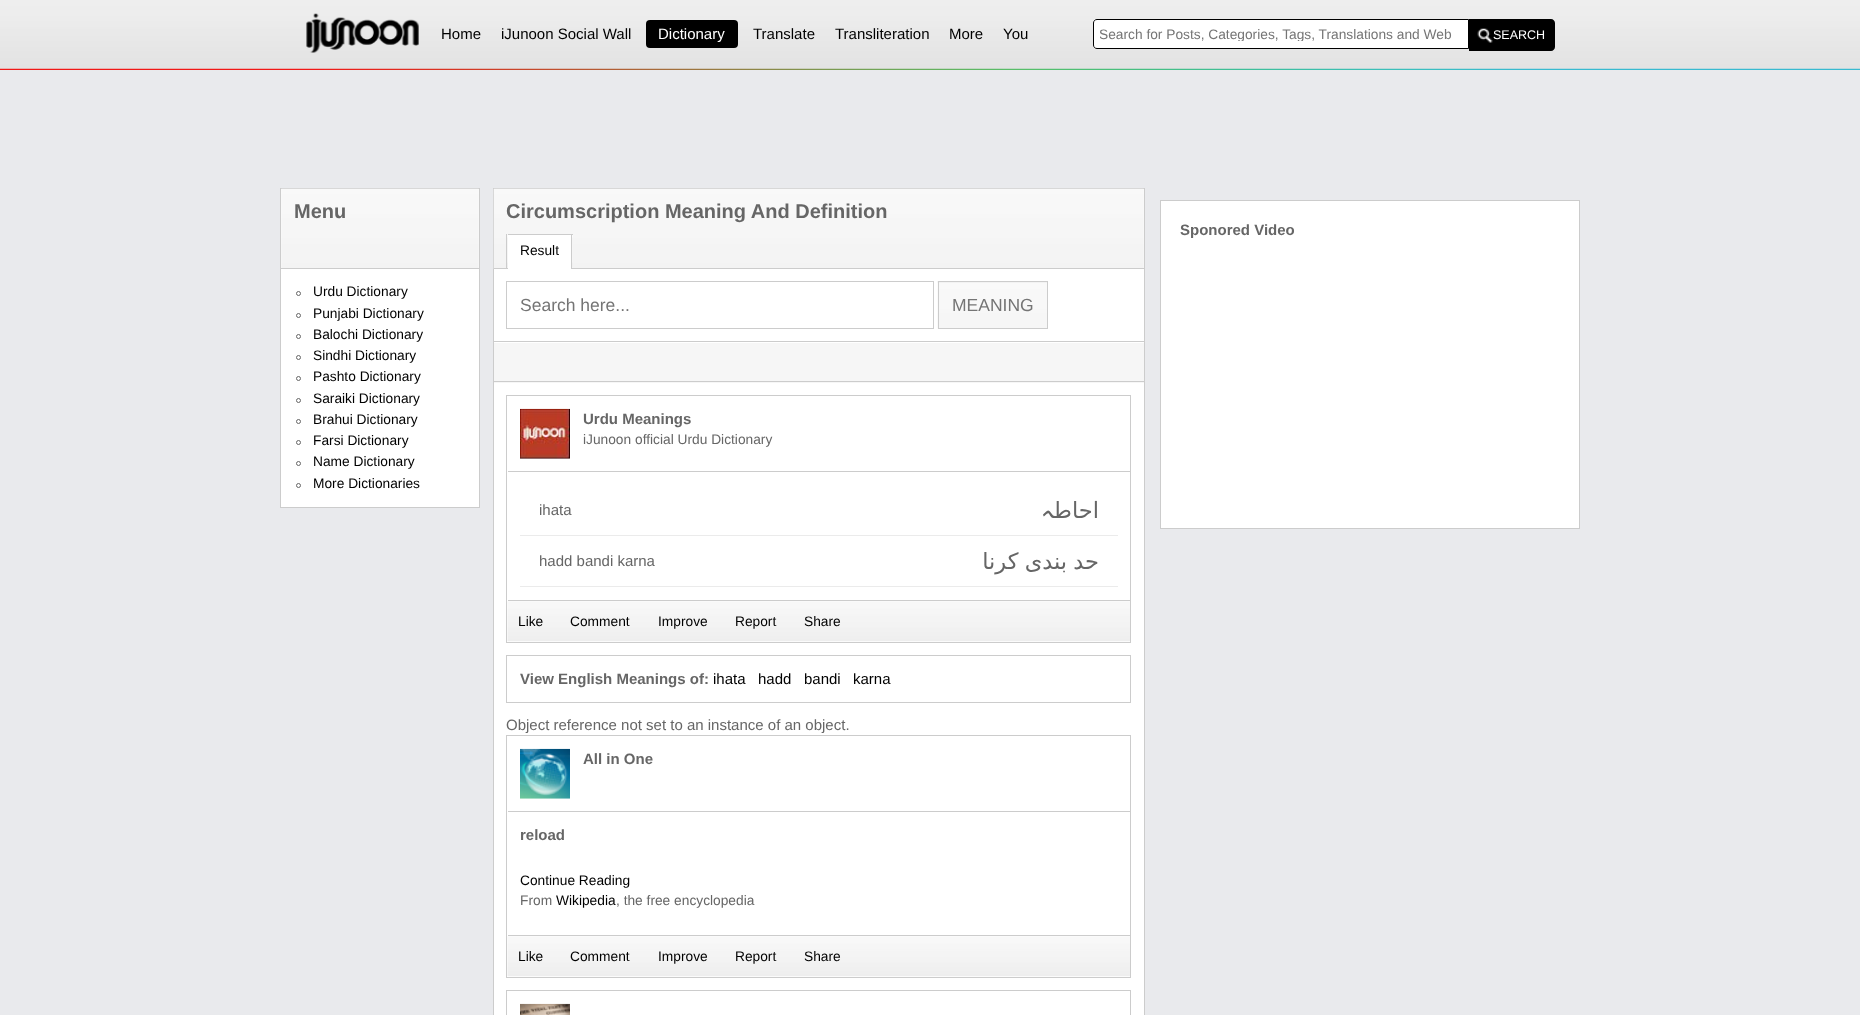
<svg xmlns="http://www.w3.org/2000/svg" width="1860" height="1015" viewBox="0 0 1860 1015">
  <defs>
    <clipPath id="clip1"><rect x="1100" y="26" width="361" height="15"/></clipPath>
  </defs>
  <rect width="100%" height="100%" fill="rgb(233,234,237)"/>
  <image x="0" y="68" width="1860" height="2" href="pic1.png"/>
  <image x="0" y="0" width="1860" height="69" href="pic2.png"/>
  <image x="306" y="13" width="113" height="40" href="pic3.png"/>
  <g font-family="Liberation Sans" font-size="15" fill="rgb(0,0,0)">
    <text x="441" y="39">Home</text>
    <text x="501" y="39">iJunoon Social Wall</text>
  </g>
  <rect x="646" y="20" width="92" height="28" rx="4" fill="rgb(0,0,0)"/>
  <text x="658" y="39" font-family="Liberation Sans" font-size="15" fill="rgb(255,255,255)">Dictionary</text>
  <g font-family="Liberation Sans" font-size="15" fill="rgb(0,0,0)">
    <text x="753" y="39">Translate</text>
    <text x="835" y="39">Transliteration</text>
    <text x="949" y="39">More</text>
    <text x="1003" y="39">You</text>
  </g>
  <path d="M1097 19.5H1468.5V48.5H1097C1095 48.5 1093.5 47 1093.5 45V23C1093.5 21 1095 19.5 1097 19.5Z" fill="rgb(255,255,255)" stroke="rgb(0,0,0)"/>
  <g clip-path="url(#clip1)">
    <text x="1099" y="39" font-family="Liberation Sans" font-size="13.75" fill="rgb(117,117,117)">Search for Posts, Categories, Tags, Translations and Web</text>
  </g>
  <path d="M1469 19H1551C1553 19 1555 21 1555 23V47C1555 49 1553 51 1551 51H1469Z" fill="rgb(0,0,0)"/>
  <image x="1477" y="28" width="16" height="15" href="pic4.png"/>
  <text x="1493" y="39" font-family="Liberation Sans" font-size="12.5" fill="rgb(255,255,255)">SEARCH</text>
  <rect x="280.5" y="188.5" width="199" height="319" fill="rgb(255,255,255)" stroke="rgb(204,204,204)"/>
  <image x="281" y="188" width="198" height="80" href="pic5.png"/>
  <rect x="281" y="268" width="198" height="1" fill="rgb(204,204,204)"/>
  <text x="294" y="218" font-family="Liberation Sans" font-size="20" font-weight="bold" fill="rgb(102,102,102)">Menu</text>
  <circle cx="298.5" cy="293.5" r="2" fill="none" stroke="rgb(102,102,102)"/>
  <text x="313" y="296" font-family="Liberation Sans" font-size="13.75" fill="rgb(0,0,0)">Urdu Dictionary</text>
  <circle cx="298.5" cy="315.5" r="2" fill="none" stroke="rgb(102,102,102)"/>
  <text x="313" y="318" font-family="Liberation Sans" font-size="13.75" fill="rgb(0,0,0)">Punjabi Dictionary</text>
  <circle cx="298.5" cy="336.5" r="2" fill="none" stroke="rgb(102,102,102)"/>
  <text x="313" y="339" font-family="Liberation Sans" font-size="13.75" fill="rgb(0,0,0)">Balochi Dictionary</text>
  <circle cx="298.5" cy="357.5" r="2" fill="none" stroke="rgb(102,102,102)"/>
  <text x="313" y="360" font-family="Liberation Sans" font-size="13.75" fill="rgb(0,0,0)">Sindhi Dictionary</text>
  <circle cx="298.5" cy="378.5" r="2" fill="none" stroke="rgb(102,102,102)"/>
  <text x="313" y="381" font-family="Liberation Sans" font-size="13.75" fill="rgb(0,0,0)">Pashto Dictionary</text>
  <circle cx="298.5" cy="400.5" r="2" fill="none" stroke="rgb(102,102,102)"/>
  <text x="313" y="403" font-family="Liberation Sans" font-size="13.75" fill="rgb(0,0,0)">Saraiki Dictionary</text>
  <circle cx="298.5" cy="421.5" r="2" fill="none" stroke="rgb(102,102,102)"/>
  <text x="313" y="424" font-family="Liberation Sans" font-size="13.75" fill="rgb(0,0,0)">Brahui Dictionary</text>
  <circle cx="298.5" cy="442.5" r="2" fill="none" stroke="rgb(102,102,102)"/>
  <text x="313" y="445" font-family="Liberation Sans" font-size="13.75" fill="rgb(0,0,0)">Farsi Dictionary</text>
  <circle cx="298.5" cy="463.5" r="2" fill="none" stroke="rgb(102,102,102)"/>
  <text x="313" y="466" font-family="Liberation Sans" font-size="13.75" fill="rgb(0,0,0)">Name Dictionary</text>
  <circle cx="298.5" cy="485.5" r="2" fill="none" stroke="rgb(102,102,102)"/>
  <text x="313" y="488" font-family="Liberation Sans" font-size="13.75" fill="rgb(0,0,0)">More Dictionaries</text>
  <rect x="493.5" y="188.5" width="651" height="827" fill="rgb(255,255,255)" stroke="rgb(204,204,204)"/>
  <image x="493" y="188" width="651" height="81" href="pic6.png"/>
  <rect x="494" y="268" width="650" height="1" fill="rgb(204,204,204)"/>
  <text x="506" y="218" font-family="Liberation Sans" font-size="20" font-weight="bold" fill="rgb(102,102,102)">Circumscription Meaning And Definition</text>
  <rect x="506" y="234" width="1" height="34" fill="rgb(204,204,204)"/>
  <image x="507" y="235" width="66" height="32" href="pic7.png"/>
  <rect x="508" y="234" width="65" height="1" fill="rgb(204,204,204)"/>
  <rect x="571" y="234" width="1" height="35" fill="rgb(204,204,204)"/>
  <rect x="508" y="237" width="63" height="32" fill="rgb(255,255,255)"/>
  <text x="520" y="255" font-family="Liberation Sans" font-size="13.75" fill="rgb(0,0,0)">Result</text>
  <rect x="494" y="341" width="650" height="1" fill="rgb(204,204,204)"/>
  <rect x="506.5" y="281.5" width="427" height="47" fill="none" stroke="rgb(204,204,204)"/>
  <text x="520" y="311" font-family="Liberation Sans" font-size="17.5" fill="rgb(117,117,117)">Search here...</text>
  <image x="937" y="281" width="110" height="48" href="pic8.png"/>
  <rect x="938.5" y="281.5" width="109" height="47" fill="none" stroke="rgb(204,204,204)"/>
  <text x="952" y="311" font-family="Liberation Sans" font-size="17.5" fill="rgb(117,117,117)">MEANING</text>
  <rect x="494" y="343" width="650" height="40" fill="rgb(246,246,246)"/>
  <rect x="494" y="381" width="650" height="1" fill="rgb(204,204,204)"/>
  <rect x="506.5" y="395.5" width="624" height="247" fill="none" stroke="rgb(204,204,204)"/>
  <rect x="508" y="471" width="622" height="1" fill="rgb(204,204,204)"/>
  <image x="520" y="408" width="50" height="51" href="pic9.png"/>
  <text x="583" y="424" font-family="Liberation Sans" font-size="15" font-weight="bold" fill="rgb(102,102,102)">Urdu Meanings</text>
  <text x="583" y="444" font-family="Liberation Sans" font-size="13.75" fill="rgb(102,102,102)">iJunoon official Urdu Dictionary</text>
  <text x="539" y="515" font-family="Liberation Sans" font-size="15" fill="rgb(102,102,102)">ihata</text>
  <rect x="520" y="535" width="598" height="1" fill="rgb(235,235,235)"/>
  <text x="1054" y="518" font-family="Cascadia Code" font-size="22.5" direction="rtl" fill="rgb(102,102,102)">‍ہ</text>
  <text x="1099" y="518" font-family="DejaVu Sans" font-size="22.5" direction="rtl" fill="rgb(102,102,102)">احاط‍</text>
  <text x="539" y="566" font-family="Liberation Sans" font-size="15" fill="rgb(102,102,102)">hadd bandi karna</text>
  <rect x="520" y="586" width="598" height="1" fill="rgb(235,235,235)"/>
  <text x="1099" y="569" word-spacing="-1" font-family="DejaVu Sans" font-size="22.5" direction="rtl" fill="rgb(102,102,102)">حد بندی کرنا</text>
  <image x="507" y="601" width="623" height="41" href="pic10.png"/>
  <rect x="508" y="600" width="622" height="1" fill="rgb(204,204,204)"/>
  <g font-family="Liberation Sans" font-size="13.75" fill="rgb(0,0,0)">
    <text x="518" y="626">Like</text>
    <text x="570" y="626">Comment</text>
    <text x="658" y="626">Improve</text>
    <text x="735" y="626">Report</text>
    <text x="804" y="626">Share</text>
  </g>
  <rect x="506.5" y="655.5" width="624" height="47" fill="none" stroke="rgb(204,204,204)"/>
  <text x="520" y="684" font-family="Liberation Sans" font-size="15" font-weight="bold" fill="rgb(102,102,102)">View English Meanings of:</text>
  <g font-family="Liberation Sans" font-size="15" fill="rgb(0,0,0)">
    <text x="713" y="684">ihata</text>
    <text x="758" y="684">hadd</text>
    <text x="804" y="684">bandi</text>
    <text x="853" y="684">karna</text>
  </g>
  <text x="506" y="730" font-family="Liberation Sans" font-size="15" fill="rgb(102,102,102)">Object reference not set to an instance of an object.</text>
  <rect x="506.5" y="735.5" width="624" height="242" fill="none" stroke="rgb(204,204,204)"/>
  <rect x="508" y="811" width="622" height="1" fill="rgb(204,204,204)"/>
  <image x="520" y="748" width="50" height="51" href="pic11.png"/>
  <g font-family="Liberation Sans" font-size="15" font-weight="bold" fill="rgb(102,102,102)">
    <text x="583" y="764">All in One</text>
    <text x="520" y="840">reload</text>
  </g>
  <text x="520" y="885" font-family="Liberation Sans" font-size="13.75" fill="rgb(0,0,0)">Continue Reading</text>
  <text x="520" y="905" font-family="Liberation Sans" font-size="13.75" fill="rgb(102,102,102)">From</text>
  <text x="556" y="905" font-family="Liberation Sans" font-size="13.75" fill="rgb(0,0,0)">Wikipedia</text>
  <text x="616" y="905" font-family="Liberation Sans" font-size="13.75" fill="rgb(102,102,102)">, the free encyclopedia</text>
  <image x="507" y="936" width="623" height="41" href="pic10.png"/>
  <rect x="508" y="935" width="622" height="1" fill="rgb(204,204,204)"/>
  <g font-family="Liberation Sans" font-size="13.75" fill="rgb(0,0,0)">
    <text x="518" y="961">Like</text>
    <text x="570" y="961">Comment</text>
    <text x="658" y="961">Improve</text>
    <text x="735" y="961">Report</text>
    <text x="804" y="961">Share</text>
  </g>
  <rect x="506.5" y="990.5" width="624" height="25" fill="none" stroke="rgb(204,204,204)"/>
  <image x="520" y="1003" width="50" height="12" href="pic12.png"/>
  <rect x="1160.5" y="200.5" width="419" height="328" fill="rgb(255,255,255)" stroke="rgb(204,204,204)"/>
  <text x="1180" y="235" font-family="Liberation Sans" font-size="15" font-weight="bold" fill="rgb(102,102,102)">Sponored Video</text>
</svg>
